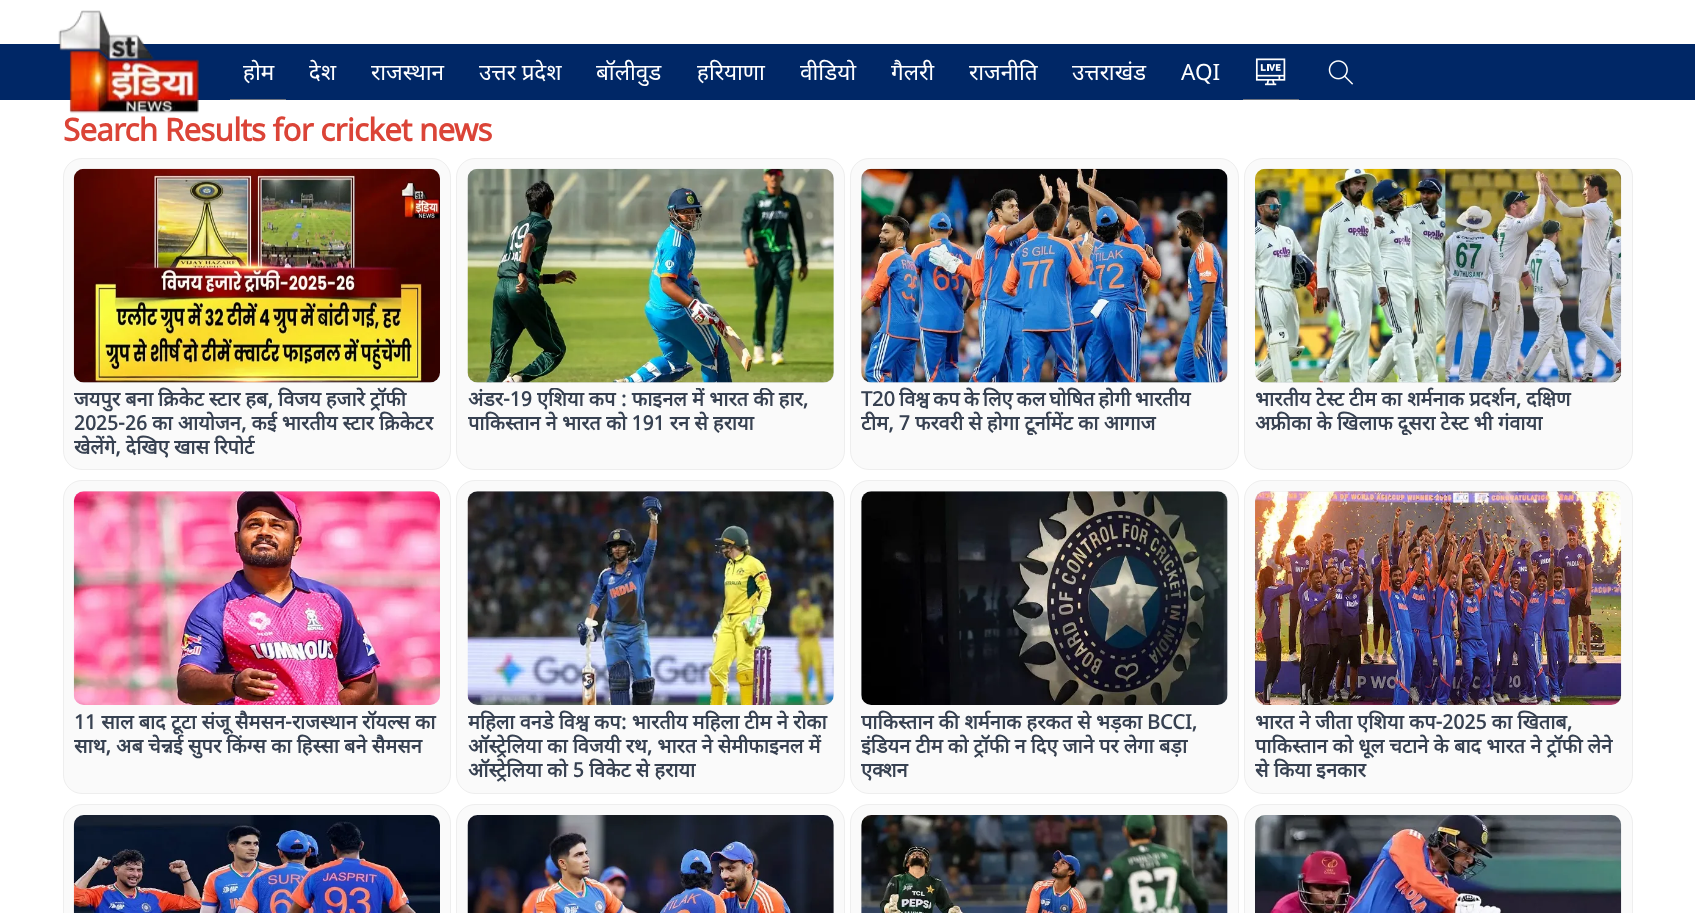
<svg xmlns="http://www.w3.org/2000/svg" width="1695" height="913" viewBox="0 0 1695 913">
  <defs>
    <clipPath id="clip1"><rect x="74" y="388" width="366" height="71"/></clipPath>
    <clipPath id="clip2"><rect x="468" y="388" width="366" height="47"/></clipPath>
    <clipPath id="clip3"><rect x="861" y="388" width="367" height="47"/></clipPath>
    <clipPath id="clip4"><rect x="1255" y="388" width="366" height="47"/></clipPath>
    <clipPath id="clip5"><rect x="861" y="710" width="367" height="73"/></clipPath>
    <clipPath id="clip6"><rect x="1255" y="710" width="366" height="73"/></clipPath>
  </defs>
  <rect width="100%" height="100%" fill="rgb(255,255,255)"/>
  <rect x="0" y="44" width="1695" height="56" fill="rgb(0,39,102)"/>
  <image x="58" y="10" width="141" height="104" href="pic1.png"/>
  <rect x="230" y="99" width="56" height="1" fill="rgb(107,114,128)"/>
  <g font-family="Noto Sans" font-size="22.5" fill="rgb(255,255,255)">
    <text x="243" y="80">होम</text>
    <text x="309" y="80">देश</text>
    <text x="371" y="80">राजस्थान</text>
    <text x="479" y="80">उत्तर प्रदेश</text>
    <text x="596" y="80">बॉलीवुड</text>
    <text x="697" y="80">हरियाणा</text>
    <text x="800" y="80">वीडियो</text>
    <text x="891" y="80">गैलरी</text>
    <text x="969" y="80">राजनीति</text>
    <text x="1072" y="80">उत्तराखंड</text>
    <text x="1181" y="80">AQI</text>
  </g>
  <rect x="1243" y="99" width="56" height="1" fill="rgb(107,114,128)"/>
  <image x="1255" y="58" width="31" height="28" href="pic2.png"/>
  <image x="1328" y="60" width="26" height="25" href="pic3.png"/>
  <text x="63" y="141" font-family="Noto Sans" font-size="31.25" font-weight="bold" letter-spacing="-0.75" fill="rgb(219,68,55)">Search Results for cricket news</text>
  <rect x="63.5" y="158.5" width="387" height="311" rx="18.5" fill="rgb(250,250,250)" stroke="rgb(238,238,238)"/>
  <rect x="74" y="169" width="366" height="214" rx="10" fill="rgb(229,231,235)"/>
  <image x="73" y="168" width="367" height="215" href="pic4.png"/>
  <g font-family="Noto Sans" font-size="20" font-weight="bold" fill="rgb(55,65,81)">
    <text>
      <tspan x="74" y="406">जयपुर बना क्रिकेट स्टार हब, विजय हजारे ट्रॉफी</tspan>
      <tspan x="74" y="430">2025-26 का आयोजन, कई भारतीय स्टार क्रिकेटर</tspan>
    </text>
  </g>
  <g clip-path="url(#clip1)">
    <text x="74" y="454" font-family="Noto Sans" font-size="20" font-weight="bold" fill="rgb(55,65,81)">खेलेंगे, देखिए खास रिपोर्ट</text>
  </g>
  <rect x="456.5" y="158.5" width="388" height="311" rx="18.5" fill="rgb(250,250,250)" stroke="rgb(238,238,238)"/>
  <rect x="468" y="169" width="366" height="214" rx="10" fill="rgb(229,231,235)"/>
  <image x="467" y="168" width="367" height="215" href="pic5.png"/>
  <g clip-path="url(#clip2)">
    <text x="468" y="406" font-family="Noto Sans" font-size="20" font-weight="bold" fill="rgb(55,65,81)">अंडर-19 एशिया कप : फाइनल में भारत की हार,</text>
  </g>
  <text x="468" y="430" font-family="Noto Sans" font-size="20" font-weight="bold" fill="rgb(55,65,81)">पाकिस्तान ने भारत को 191 रन से हराया</text>
  <rect x="850.5" y="158.5" width="388" height="311" rx="18.5" fill="rgb(250,250,250)" stroke="rgb(238,238,238)"/>
  <rect x="861" y="169" width="367" height="214" rx="10" fill="rgb(229,231,235)"/>
  <image x="861" y="168" width="367" height="215" href="pic6.png"/>
  <text x="861" y="406" word-spacing="-1.25" font-family="Noto Sans" font-size="20" font-weight="bold" fill="rgb(55,65,81)">T20 विश्व कप के लिए कल घोषित होगी भारतीय</text>
  <g clip-path="url(#clip3)">
    <text x="861" y="430" font-family="Noto Sans" font-size="20" font-weight="bold" fill="rgb(55,65,81)">टीम, 7 फरवरी से होगा टूर्नामेंट का आगाज</text>
  </g>
  <rect x="1244.5" y="158.5" width="388" height="311" rx="18.5" fill="rgb(250,250,250)" stroke="rgb(238,238,238)"/>
  <rect x="1255" y="169" width="366" height="214" rx="10" fill="rgb(229,231,235)"/>
  <image x="1255" y="168" width="367" height="215" href="pic7.png"/>
  <text x="1255" y="406" font-family="Noto Sans" font-size="20" font-weight="bold" fill="rgb(55,65,81)">भारतीय टेस्ट टीम का शर्मनाक प्रदर्शन, दक्षिण</text>
  <g clip-path="url(#clip4)">
    <text x="1255" y="430" font-family="Noto Sans" font-size="20" font-weight="bold" fill="rgb(55,65,81)">अफ्रीका के खिलाफ दूसरा टेस्ट भी गंवाया</text>
  </g>
  <rect x="63.5" y="480.5" width="387" height="313" rx="18.5" fill="rgb(250,250,250)" stroke="rgb(238,238,238)"/>
  <rect x="74" y="491" width="366" height="214" rx="10" fill="rgb(229,231,235)"/>
  <image x="73" y="491" width="367" height="214" href="pic8.png"/>
  <g font-family="Noto Sans" font-size="20" font-weight="bold" fill="rgb(55,65,81)">
    <text>
      <tspan x="74" y="729">11 साल बाद टूटा संजू सैमसन-राजस्थान रॉयल्स का</tspan>
      <tspan x="74" y="753">साथ, अब चेन्नई सुपर किंग्स का हिस्सा बने सैमसन</tspan>
    </text>
  </g>
  <rect x="456.5" y="480.5" width="388" height="313" rx="18.5" fill="rgb(250,250,250)" stroke="rgb(238,238,238)"/>
  <rect x="468" y="491" width="366" height="214" rx="10" fill="rgb(229,231,235)"/>
  <image x="467" y="491" width="367" height="214" href="pic9.png"/>
  <g font-family="Noto Sans" font-size="20" font-weight="bold" fill="rgb(55,65,81)">
    <text>
      <tspan x="468" y="729">महिला वनडे विश्व कप: भारतीय महिला टीम ने रोका</tspan>
      <tspan x="468" y="753">ऑस्ट्रेलिया का विजयी रथ, भारत ने सेमीफाइनल में</tspan>
      <tspan x="468" y="777">ऑस्ट्रेलिया को 5 विकेट से हराया</tspan>
    </text>
  </g>
  <rect x="850.5" y="480.5" width="388" height="313" rx="18.5" fill="rgb(250,250,250)" stroke="rgb(238,238,238)"/>
  <rect x="861" y="491" width="367" height="214" rx="10" fill="rgb(229,231,235)"/>
  <image x="861" y="491" width="367" height="214" href="pic10.png"/>
  <text x="861" y="729" font-family="Noto Sans" font-size="20" font-weight="bold" fill="rgb(55,65,81)">पाकिस्तान की शर्मनाक हरकत से भड़का BCCI,</text>
  <g clip-path="url(#clip5)">
    <text x="861" y="753" font-family="Noto Sans" font-size="20" font-weight="bold" fill="rgb(55,65,81)">इंडियन टीम को ट्रॉफी न दिए जाने पर लेगा बड़ा</text>
  </g>
  <text x="861" y="777" font-family="Noto Sans" font-size="20" font-weight="bold" fill="rgb(55,65,81)">एक्शन</text>
  <rect x="1244.5" y="480.5" width="388" height="313" rx="18.5" fill="rgb(250,250,250)" stroke="rgb(238,238,238)"/>
  <rect x="1255" y="491" width="366" height="214" rx="10" fill="rgb(229,231,235)"/>
  <image x="1255" y="491" width="367" height="214" href="pic11.png"/>
  <g font-family="Noto Sans" font-size="20" font-weight="bold" fill="rgb(55,65,81)">
    <text>
      <tspan x="1255" y="729">भारत ने जीता एशिया कप-2025 का खिताब,</tspan>
      <tspan x="1255" y="753">पाकिस्तान को धूल चटाने के बाद भारत ने ट्रॉफी लेने</tspan>
    </text>
  </g>
  <g clip-path="url(#clip6)">
    <text x="1255" y="777" font-family="Noto Sans" font-size="20" font-weight="bold" fill="rgb(55,65,81)">से किया इनकार</text>
  </g>
  <rect x="63.5" y="804.5" width="387" height="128" rx="18.5" fill="rgb(250,250,250)" stroke="rgb(238,238,238)"/>
  <rect x="74" y="815" width="366" height="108" rx="10" fill="rgb(229,231,235)"/>
  <image x="73" y="815" width="367" height="98" href="pic12.png"/>
  <rect x="456.5" y="804.5" width="388" height="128" rx="18.5" fill="rgb(250,250,250)" stroke="rgb(238,238,238)"/>
  <rect x="468" y="815" width="366" height="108" rx="10" fill="rgb(229,231,235)"/>
  <image x="467" y="815" width="367" height="98" href="pic13.png"/>
  <rect x="850.5" y="804.5" width="388" height="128" rx="18.5" fill="rgb(250,250,250)" stroke="rgb(238,238,238)"/>
  <rect x="861" y="815" width="367" height="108" rx="10" fill="rgb(229,231,235)"/>
  <image x="861" y="815" width="367" height="98" href="pic14.png"/>
  <rect x="1244.5" y="804.5" width="388" height="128" rx="18.5" fill="rgb(250,250,250)" stroke="rgb(238,238,238)"/>
  <rect x="1255" y="815" width="366" height="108" rx="10" fill="rgb(229,231,235)"/>
  <image x="1255" y="815" width="367" height="98" href="pic15.png"/>
</svg>
